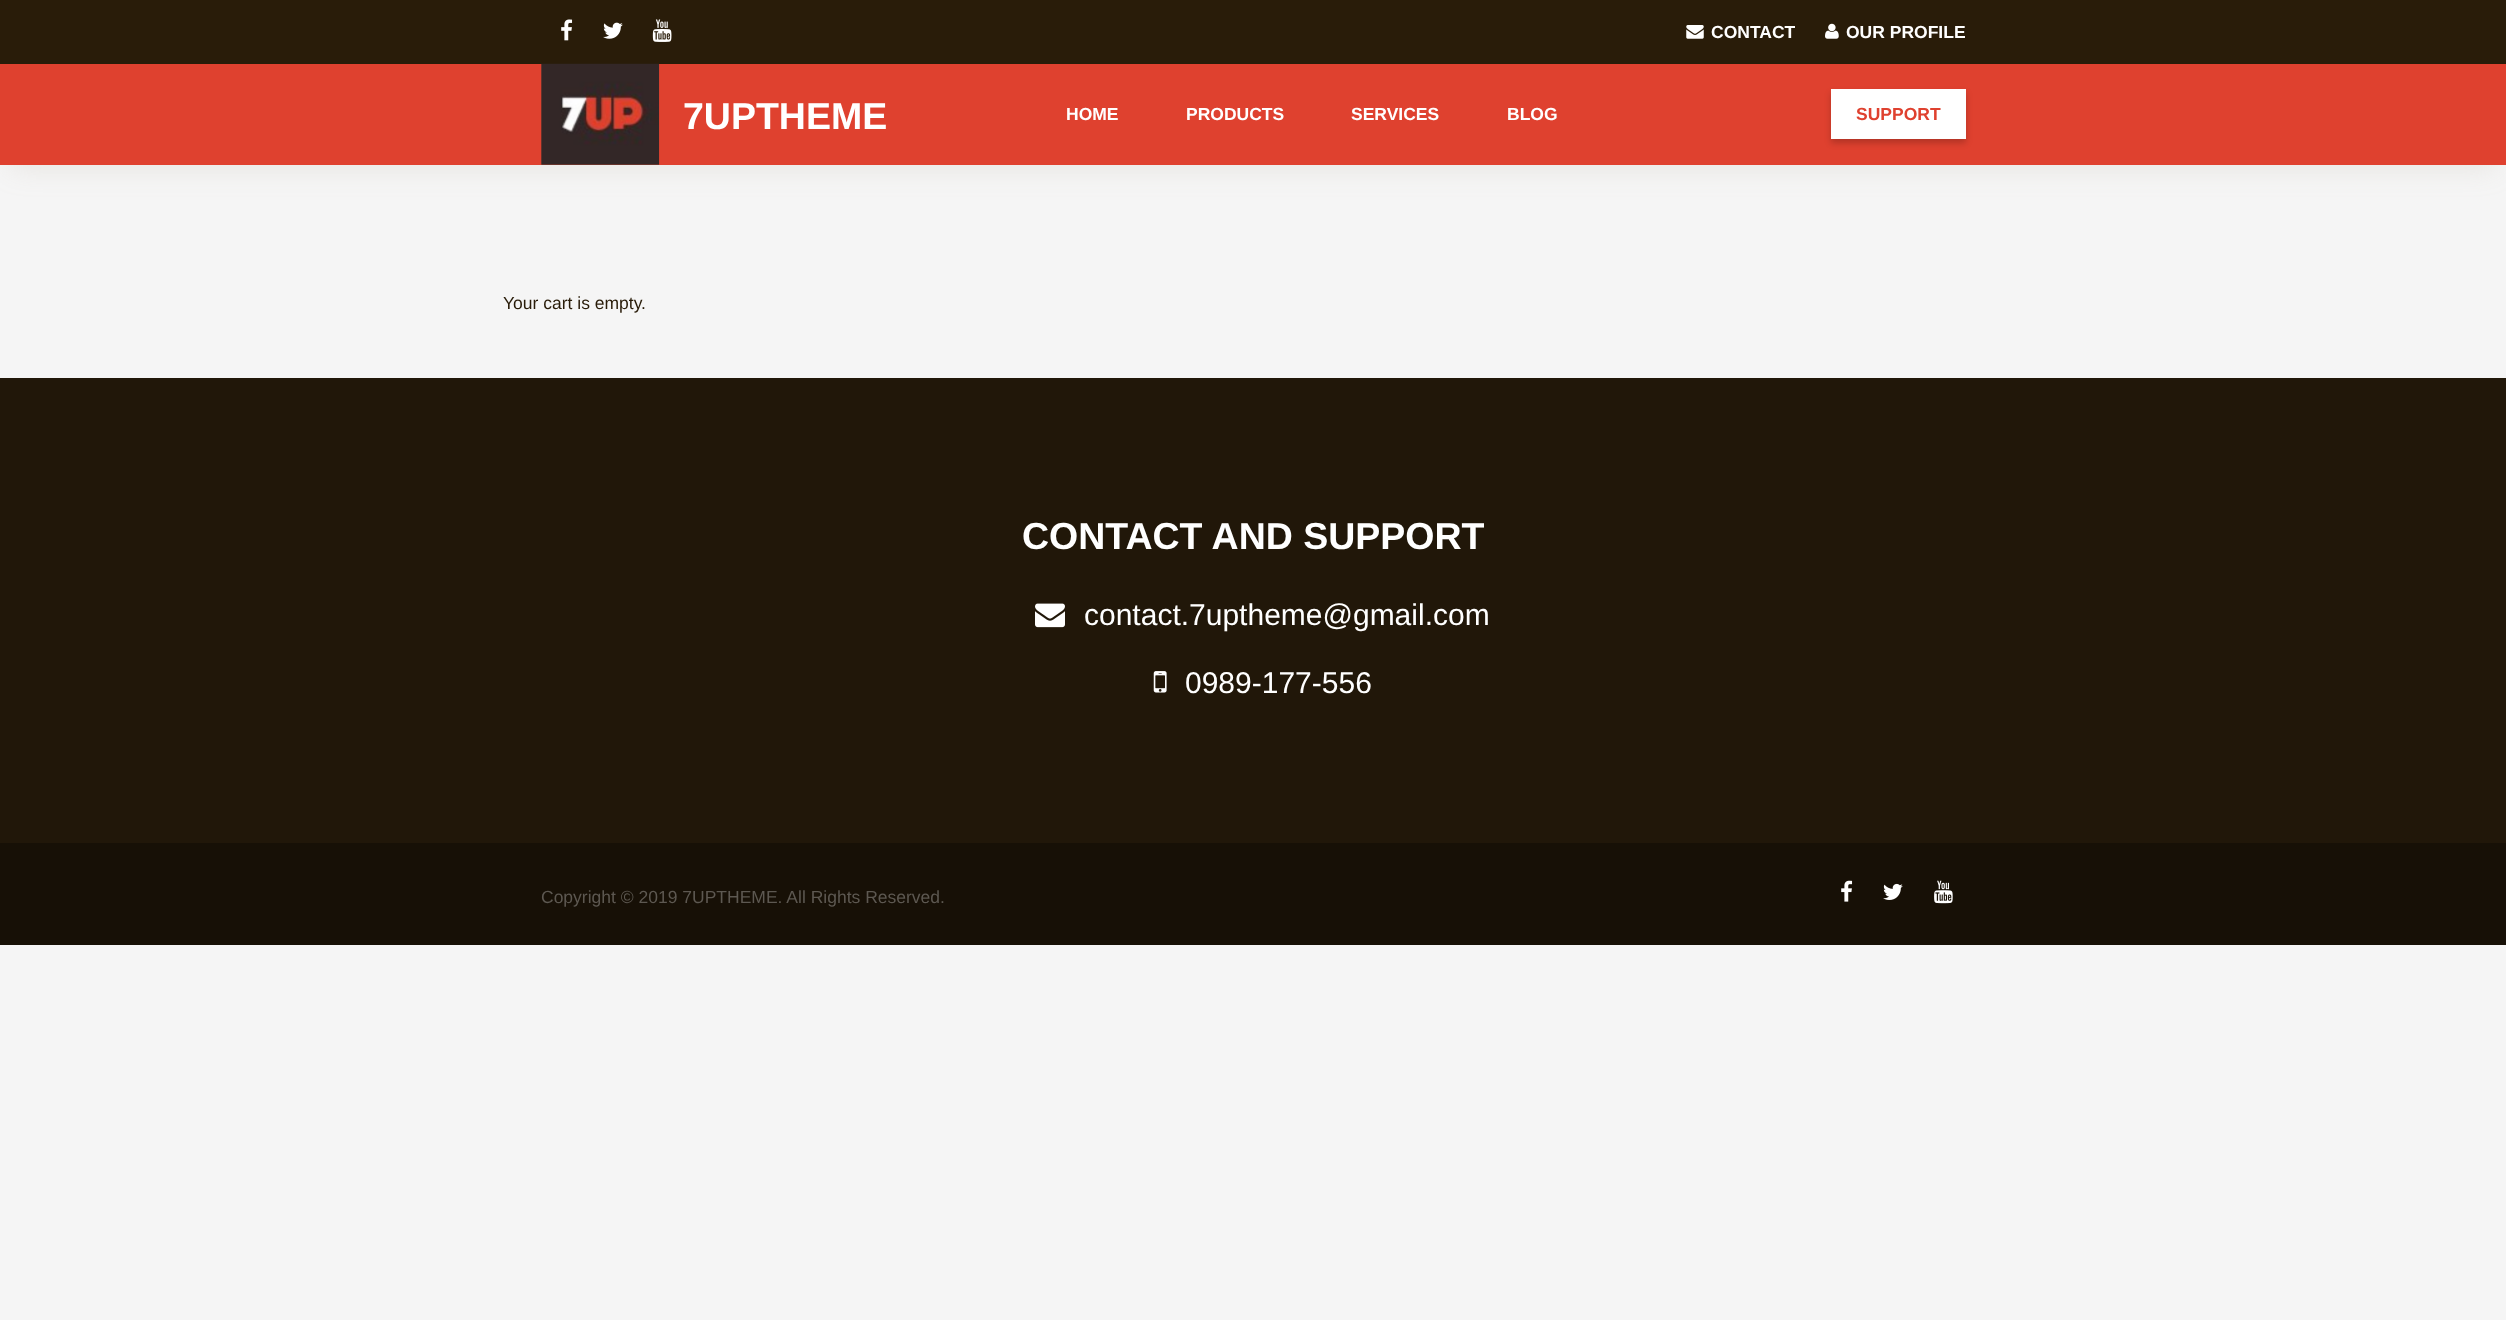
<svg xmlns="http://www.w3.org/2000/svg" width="2506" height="1320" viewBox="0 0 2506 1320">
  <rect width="100%" height="100%" fill="rgb(245,245,245)"/>
  <rect x="11" y="23" width="2484" height="142" fill="rgba(170,157,137,0.21)" filter="blur(15.5px)"/>
  <rect x="0" y="0" width="2506" height="64" fill="rgb(41,28,9)"/>
  <image x="561" y="19" width="12" height="22" href="pic1.png"/>
  <image x="603" y="22" width="20" height="17" href="pic2.png"/>
  <image x="652" y="19" width="20" height="23" href="pic3.png"/>
  <image x="1686" y="25" width="18" height="14" href="pic4.png"/>
  <text x="1711" y="38" font-family="Liberation Sans" font-size="17.5" font-weight="bold" fill="rgb(255,255,255)">CONTACT</text>
  <image x="1825" y="23" width="14" height="16" href="pic5.png"/>
  <text x="1846" y="38" font-family="Liberation Sans" font-size="17.5" font-weight="bold" fill="rgb(255,255,255)">OUR PROFILE</text>
  <rect x="0" y="64" width="2506" height="101" fill="rgb(223,65,47)"/>
  <rect x="541" y="64" width="118" height="101" fill="rgb(255,87,57)"/>
  <image x="541" y="63" width="119" height="102" href="pic6.png"/>
  <text x="683" y="129" font-family="Liberation Sans" font-size="37.5" font-weight="bold" fill="rgb(255,255,255)">7UPTHEME</text>
  <g font-family="Liberation Sans" font-size="17.5" font-weight="bold" fill="rgb(255,255,255)">
    <text x="1066" y="120">HOME</text>
    <text x="1186" y="120">PRODUCTS</text>
    <text x="1351" y="120">SERVICES</text>
    <text x="1507" y="120">BLOG</text>
  </g>
  <rect x="1831" y="93" width="135" height="50" fill="rgba(0,0,0,0.2)" filter="blur(3px)"/>
  <rect x="1831" y="89" width="135" height="50" fill="rgb(255,255,255)"/>
  <text x="1856" y="120" font-family="Liberation Sans" font-size="17.5" font-weight="bold" fill="rgb(223,65,47)">SUPPORT</text>
  <text x="503" y="309" font-family="Liberation Sans" font-size="17.5" fill="rgb(41,28,9)">Your cart is empty.</text>
  <rect x="0" y="378" width="2506" height="465" fill="rgb(33,23,9)"/>
  <text x="1022" y="549" font-family="Liberation Sans" font-size="37.5" font-weight="bold" fill="rgb(255,255,255)">CONTACT AND SUPPORT</text>
  <image x="1035" y="603" width="30" height="25" href="pic7.png"/>
  <text x="1084" y="625" font-family="Liberation Sans" font-size="30" fill="rgb(255,255,255)">contact.7uptheme@gmail.com</text>
  <image x="1153" y="671" width="14" height="22" href="pic8.png"/>
  <text x="1185" y="693" font-family="Liberation Sans" font-size="30" fill="rgb(255,255,255)">0989-177-556</text>
  <rect x="0" y="843" width="2506" height="102" fill="rgb(23,16,6)"/>
  <text x="541" y="903" font-family="Liberation Sans" font-size="17.5" fill="rgb(93,88,81)">Copyright © 2019 7UPTHEME. All Rights Reserved.</text>
  <image x="1841" y="880" width="12" height="22" href="pic9.png"/>
  <image x="1883" y="883" width="20" height="17" href="pic10.png"/>
  <image x="1934" y="880" width="19" height="24" href="pic11.png"/>
</svg>
